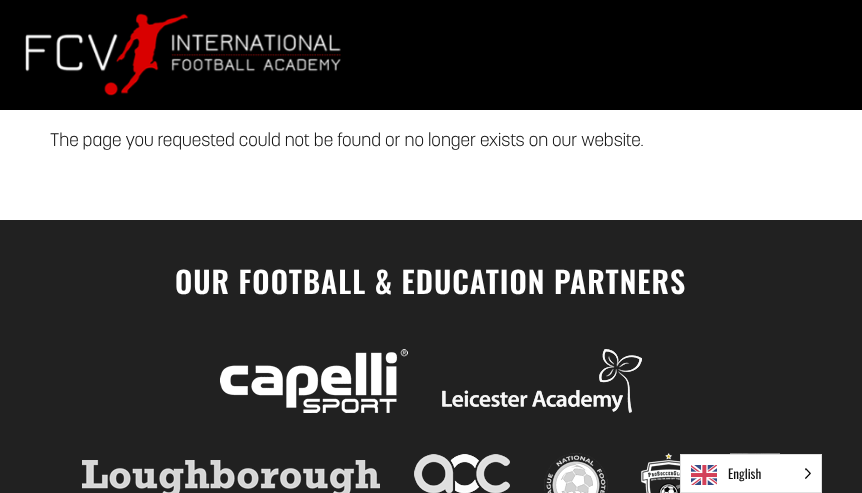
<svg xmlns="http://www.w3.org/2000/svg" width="862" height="493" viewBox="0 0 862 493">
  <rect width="100%" height="100%" fill="rgb(255,255,255)"/>
  <rect x="0" y="0" width="862" height="110" fill="rgb(0,0,0)"/>
  <image x="25" y="13" width="316" height="83" href="pic1.png"/>
  <text x="50" y="146" font-family="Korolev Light" font-size="18" font-weight="300" fill="rgb(17,17,17)">The page you requested could not be found or no longer exists on our website.</text>
  <rect x="0" y="220" width="862" height="273" fill="rgb(33,33,33)"/>
  <text x="175" y="294" font-family="Oswald" font-size="30" font-weight="600" letter-spacing="1" fill="rgb(255,255,255)">OUR FOOTBALL &amp; EDUCATION PARTNERS</text>
  <image x="220" y="349" width="188" height="64" href="pic2.png"/>
  <image x="442" y="349" width="200" height="64" href="pic3.png"/>
  <image x="544" y="453" width="64" height="40" href="pic4.png"/>
  <image x="641" y="453" width="39" height="40" href="pic5.png"/>
  <image x="730" y="453" width="50" height="1" href="pic6.png"/>
  <image x="82" y="460" width="298" height="33" href="pic7.png"/>
  <image x="414" y="454" width="96" height="39" href="pic8.png"/>
  <rect x="680.5" y="454.5" width="141" height="38" fill="rgb(255,255,255)" stroke="rgb(224,224,224)"/>
  <image x="691" y="465" width="26" height="20" href="pic9.png"/>
  <text x="728" y="479" font-family="Oswald" font-size="13" fill="rgb(17,17,17)">English</text>
  <image x="805" y="468" width="6" height="11" href="pic10.png"/>
</svg>
